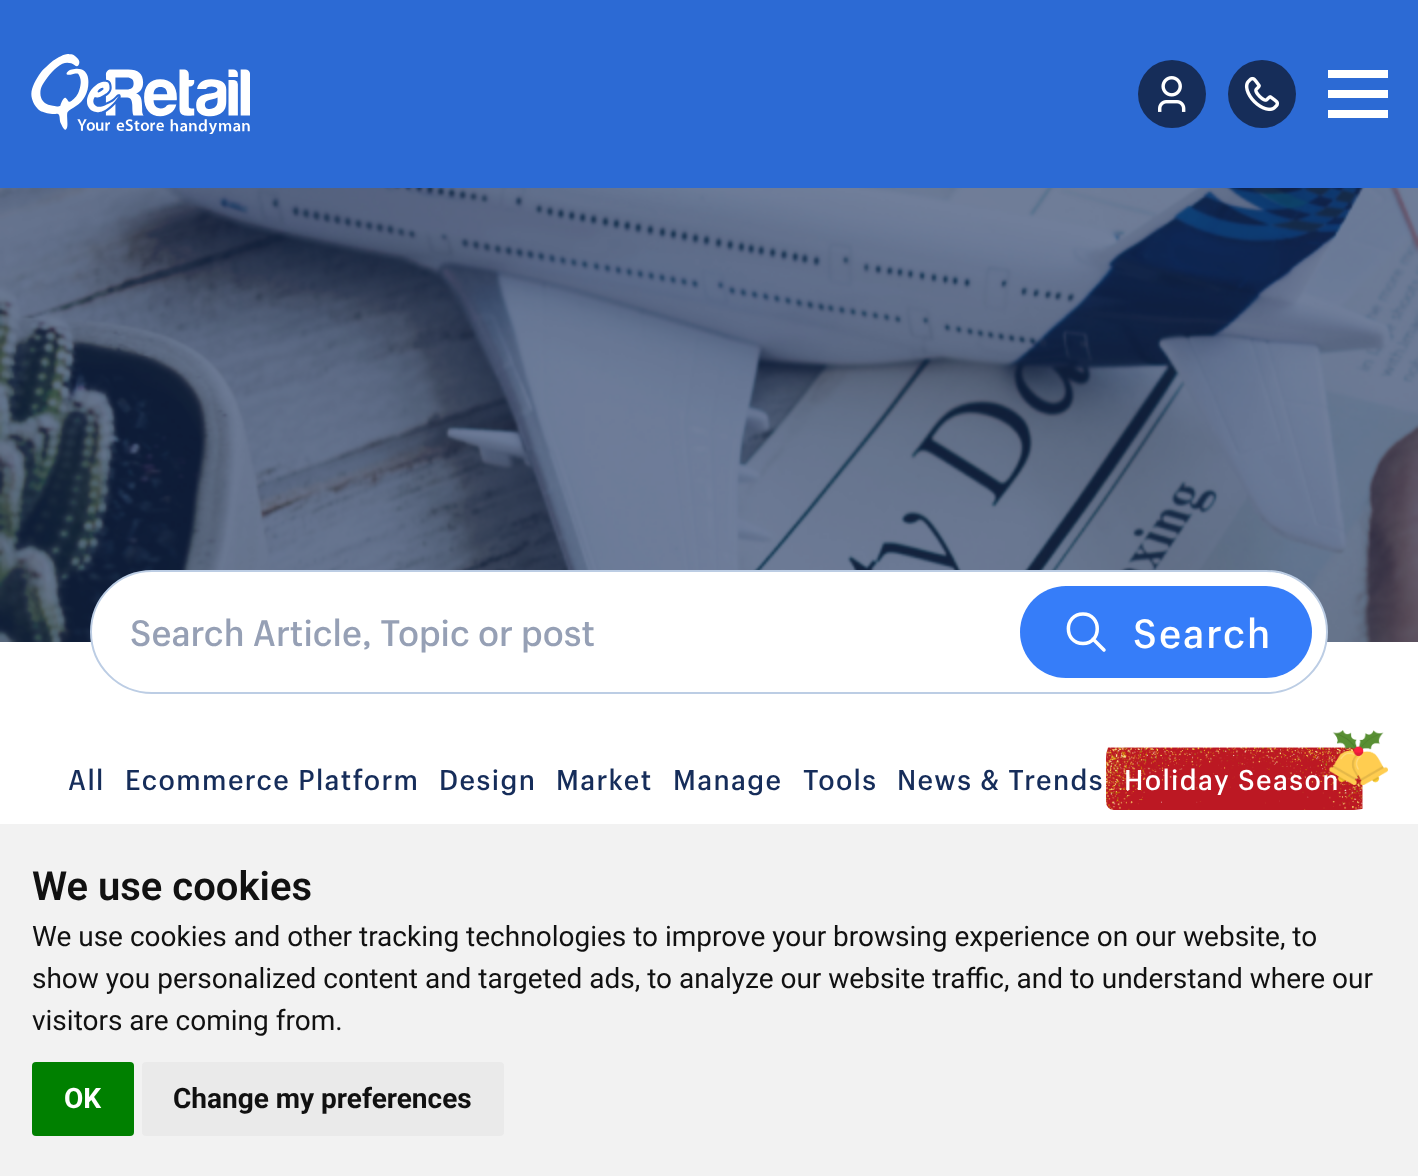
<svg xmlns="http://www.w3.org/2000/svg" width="1418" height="1176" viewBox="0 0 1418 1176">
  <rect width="100%" height="100%" fill="rgb(255,255,255)"/>
  <rect x="0" y="0" width="1418" height="188" fill="rgb(44,106,212)"/>
  <image x="31" y="54" width="219" height="80" href="pic1.png"/>
  <circle cx="1172" cy="94" r="34" fill="rgb(22,45,89)"/>
  <image x="1158" y="76" width="28" height="36" href="pic2.png"/>
  <circle cx="1262" cy="94" r="34" fill="rgb(22,45,89)"/>
  <image x="1244" y="76" width="35" height="36" href="pic3.png"/>
  <rect x="1328" y="90" width="60" height="8" fill="rgb(255,255,255)"/>
  <rect x="1328" y="70" width="60" height="8" fill="rgb(255,255,255)"/>
  <rect x="1328" y="110" width="60" height="8" fill="rgb(255,255,255)"/>
  <image x="0" y="188" width="1418" height="454" href="pic4.png"/>
  <rect x="91" y="571" width="1236" height="122" rx="61" fill="rgb(255,255,255)" stroke="rgb(188,205,228)" stroke-width="2"/>
  <text x="130" y="646" font-family="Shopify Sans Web" font-size="36" font-weight="500" fill="rgb(150,160,181)">Search Article, Topic or post</text>
  <rect x="1020" y="586" width="292" height="92" rx="46" fill="rgb(54,125,249)"/>
  <path d="M1083 643.5C1102 643.5 1102 614 1083 614C1063.5 614 1063.5 643.5 1083 643.5ZM1104 650L1093 639" fill="none" stroke="rgb(255,255,255)" stroke-width="3.5" stroke-linecap="round" stroke-linejoin="round"/>
  <text x="1133" y="648" font-family="Shopify Sans Web" font-size="40" font-weight="500" letter-spacing="2" fill="rgb(255,255,255)">Search</text>
  <g font-family="Shopify Sans Web" font-size="28" font-weight="500" letter-spacing="1.4" fill="rgb(22,45,90)">
    <text x="68" y="790">All</text>
    <text x="125" y="790">Ecommerce Platform</text>
    <text x="439" y="790">Design</text>
    <text x="556" y="790">Market</text>
    <text x="673" y="790">Manage</text>
    <text x="803" y="790">Tools</text>
    <text x="897" y="790">News &amp; Trends</text>
  </g>
  <image x="1106" y="730" width="282" height="80" href="pic5.png"/>
  <text x="1124" y="790" font-family="Shopify Sans Web" font-size="28" font-weight="500" letter-spacing="1.4" fill="rgb(255,255,255)">Holiday Season</text>
  <rect x="0" y="824" width="1418" height="352" fill="rgb(242,242,242)"/>
  <text x="32" y="900" font-family="Roboto" font-size="40" font-weight="600" fill="rgb(17,17,17)">We use cookies</text>
  <g font-family="Roboto" font-size="28" fill="rgb(17,17,17)">
    <text>
      <tspan x="32" y="946">We use cookies and other tracking technologies to improve your browsing experience on our website, to</tspan>
      <tspan x="32" y="988">show you personalized content and targeted ads, to analyze our website traffic, and to understand where our</tspan>
      <tspan x="32" y="1030">visitors are coming from.</tspan>
    </text>
  </g>
  <rect x="32" y="1062" width="102" height="74" rx="4" fill="rgb(0,128,0)"/>
  <text x="64" y="1108" font-family="Roboto" font-size="28" font-weight="bold" fill="rgb(255,255,255)">OK</text>
  <rect x="142" y="1062" width="362" height="74" rx="4" fill="rgb(234,234,234)"/>
  <text x="173" y="1108" font-family="Roboto" font-size="28" font-weight="bold" fill="rgb(17,17,17)">Change my preferences</text>
</svg>
